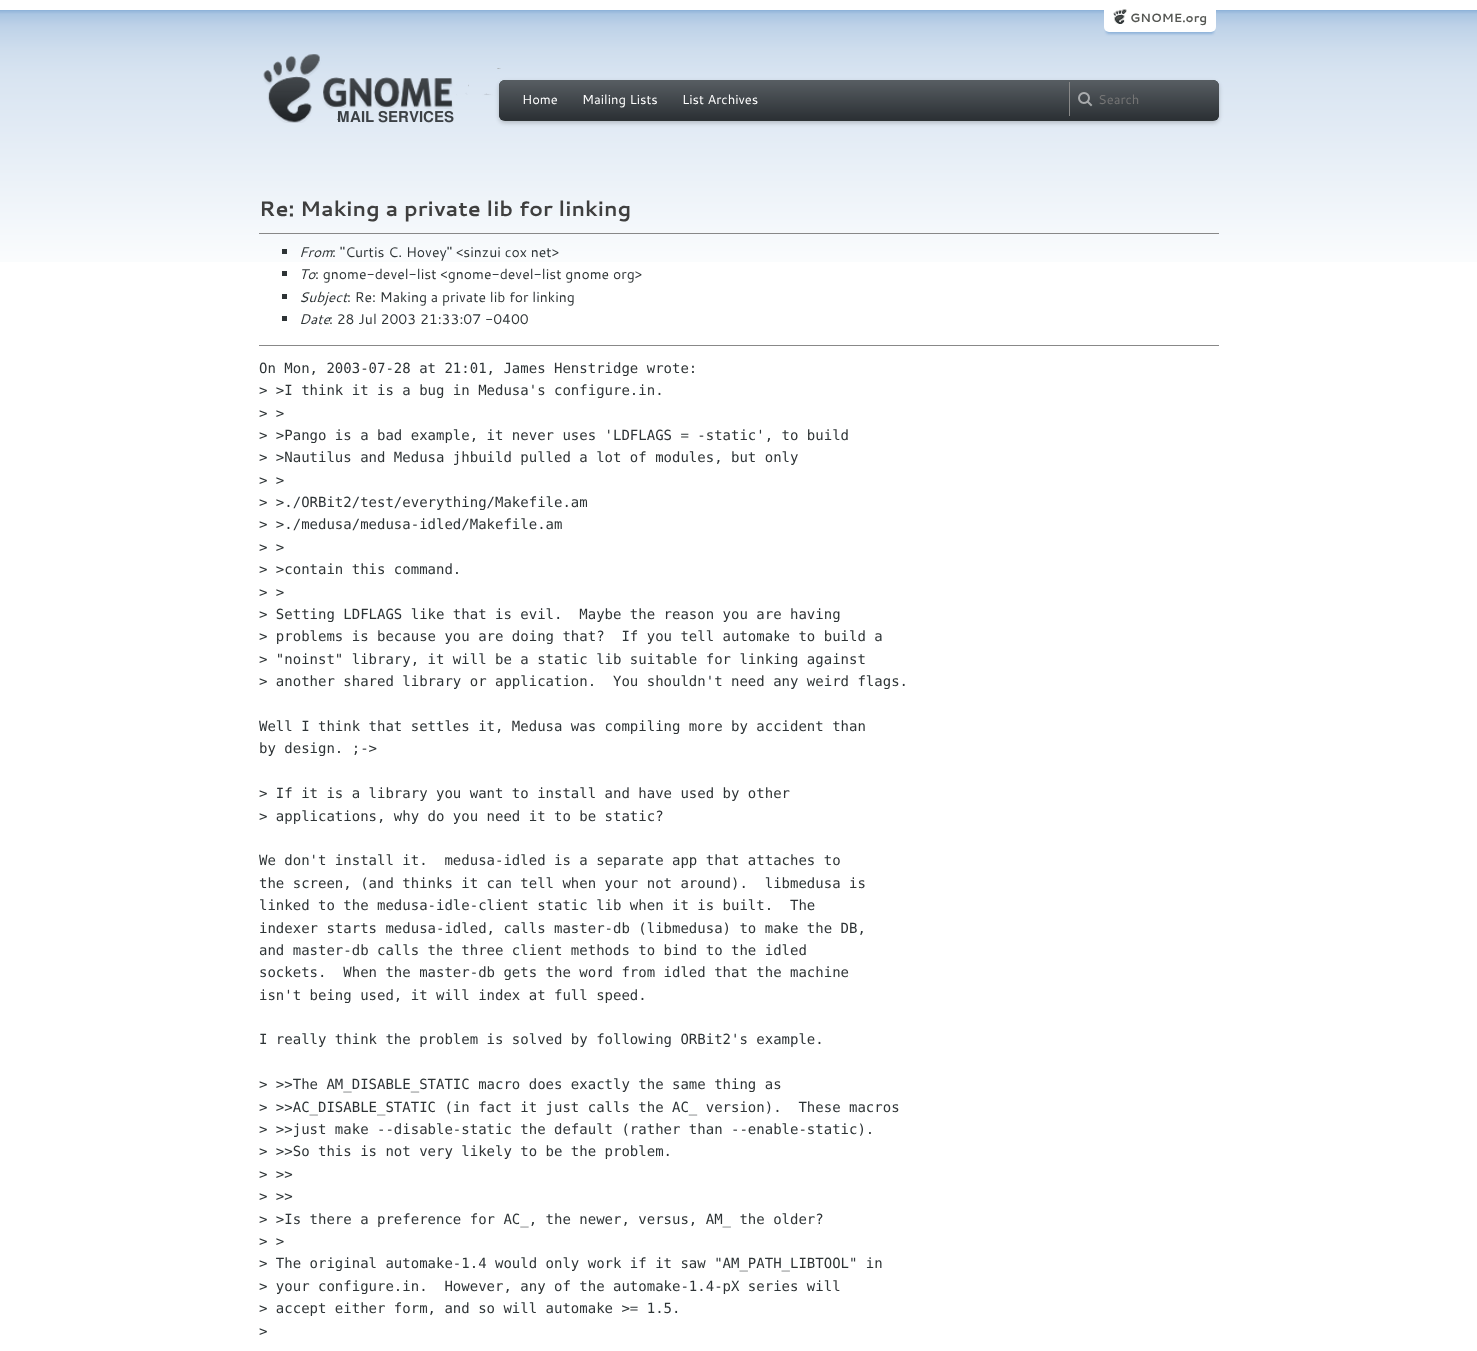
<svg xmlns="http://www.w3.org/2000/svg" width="1477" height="1351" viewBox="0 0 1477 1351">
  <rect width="100%" height="100%" fill="rgb(255,255,255)"/>
  <image x="0" y="10" width="1477" height="252" href="pic1.png"/>
  <rect x="1106" y="10" width="108" height="24" rx="3" fill="rgb(143,179,217)" filter="blur(1px)"/>
  <rect x="1104" y="4" width="112" height="28" rx="5" fill="rgb(255,255,255)"/>
  <image x="1113" y="9" width="14" height="15" href="pic2.png"/>
  <text x="1130" y="22" font-family="Cantarell" font-size="12" font-weight="bold" fill="rgb(85,87,83)">GNOME.org</text>
  <image x="263" y="54" width="238" height="69" href="pic3.png"/>
  <rect x="499" y="82" width="720" height="41" rx="6" fill="rgba(0,0,0,0.2)" filter="blur(2px)"/>
  <rect x="499" y="80" width="720" height="41" rx="6" fill="rgb(46,52,54)"/>
  <image x="499" y="80" width="720" height="40" href="pic4.png"/>
  <g font-family="Cantarell" font-size="13" fill="rgb(255,255,255)">
    <text x="522" y="104">Home</text>
    <text x="582" y="104">Mailing Lists</text>
    <text x="682" y="104">List Archives</text>
  </g>
  <image x="1078" y="92" width="15" height="15" href="pic5.png"/>
  <rect x="1069" y="82" width="1" height="34" fill="rgb(136,136,136)"/>
  <text x="1098" y="104" font-family="Cantarell" font-size="13" fill="rgb(117,117,117)">Search</text>
  <text x="259" y="216" font-family="Cantarell" font-size="21" font-weight="bold" fill="rgb(63,63,63)">Re: Making a private lib for linking</text>
  <rect x="259" y="233" width="960" height="1" fill="rgb(136,136,136)"/>
  <rect x="282" y="249" width="5" height="5" fill="rgb(46,52,54)"/>
  <text x="299" y="257" font-family="Cantarell" font-size="14" font-style="italic" fill="rgb(46,52,54)">From</text>
  <text x="332" y="257" font-family="Cantarell" font-size="14" fill="rgb(46,52,54)">: "Curtis C. Hovey" &lt;sinzui cox net&gt;</text>
  <rect x="282" y="271" width="5" height="5" fill="rgb(46,52,54)"/>
  <text x="299" y="279" font-family="Cantarell" font-size="14" font-style="italic" fill="rgb(46,52,54)">To</text>
  <text x="315" y="279" font-family="Cantarell" font-size="14" fill="rgb(46,52,54)">: gnome-devel-list &lt;gnome-devel-list gnome org&gt;</text>
  <rect x="282" y="294" width="5" height="5" fill="rgb(46,52,54)"/>
  <text x="299" y="302" font-family="Cantarell" font-size="14" font-style="italic" fill="rgb(46,52,54)">Subject</text>
  <text x="347" y="302" font-family="Cantarell" font-size="14" fill="rgb(46,52,54)">: Re: Making a private lib for linking</text>
  <rect x="282" y="316" width="5" height="5" fill="rgb(46,52,54)"/>
  <text x="299" y="324" font-family="Cantarell" font-size="14" font-style="italic" fill="rgb(46,52,54)">Date</text>
  <text x="329" y="324" font-family="Cantarell" font-size="14" fill="rgb(46,52,54)">: 28 Jul 2003 21:33:07 -0400</text>
  <rect x="259" y="345" width="960" height="1" fill="rgb(136,136,136)"/>
  <g font-family="DejaVu Sans Mono" font-size="14" fill="rgb(46,52,54)">
    <text xml:space="preserve"><tspan x="259" y="373">On Mon, 2003-07-28 at 21:01, James Henstridge wrote:</tspan><tspan x="259" y="395">&gt; &gt;I think it is a bug in Medusa's configure.in.</tspan><tspan x="259" y="418">&gt; &gt;</tspan><tspan x="259" y="440">&gt; &gt;Pango is a bad example, it never uses 'LDFLAGS = -static', to build</tspan><tspan x="259" y="462">&gt; &gt;Nautilus and Medusa jhbuild pulled a lot of modules, but only</tspan><tspan x="259" y="485">&gt; &gt;</tspan><tspan x="259" y="507">&gt; &gt;./ORBit2/test/everything/Makefile.am</tspan><tspan x="259" y="529">&gt; &gt;./medusa/medusa-idled/Makefile.am</tspan><tspan x="259" y="552">&gt; &gt;</tspan><tspan x="259" y="574">&gt; &gt;contain this command.</tspan><tspan x="259" y="597">&gt; &gt;</tspan><tspan x="259" y="619">&gt; Setting LDFLAGS like that is evil.  Maybe the reason you are having</tspan><tspan x="259" y="641">&gt; problems is because you are doing that?  If you tell automake to build a</tspan><tspan x="259" y="664">&gt; "noinst" library, it will be a static lib suitable for linking against</tspan><tspan x="259" y="686">&gt; another shared library or application.  You shouldn't need any weird flags.</tspan></text>
    <text>
      <tspan x="259" y="731">Well I think that settles it, Medusa was compiling more by accident than</tspan>
      <tspan x="259" y="753">by design. ;-&gt;</tspan>
    </text>
    <text>
      <tspan x="259" y="798">&gt; If it is a library you want to install and have used by other</tspan>
      <tspan x="259" y="821">&gt; applications, why do you need it to be static?</tspan>
    </text>
    <text xml:space="preserve"><tspan x="259" y="865">We don't install it.  medusa-idled is a separate app that attaches to</tspan><tspan x="259" y="888">the screen, (and thinks it can tell when your not around).  libmedusa is</tspan><tspan x="259" y="910">linked to the medusa-idle-client static lib when it is built.  The</tspan><tspan x="259" y="933">indexer starts medusa-idled, calls master-db (libmedusa) to make the DB,</tspan><tspan x="259" y="955">and master-db calls the three client methods to bind to the idled</tspan><tspan x="259" y="977">sockets.  When the master-db gets the word from idled that the machine</tspan><tspan x="259" y="1000">isn't being used, it will index at full speed.</tspan></text>
    <text x="259" y="1044">I really think the problem is solved by following ORBit2's example.</text>
    <text xml:space="preserve"><tspan x="259" y="1089">&gt; &gt;&gt;The AM_DISABLE_STATIC macro does exactly the same thing as</tspan><tspan x="259" y="1112">&gt; &gt;&gt;AC_DISABLE_STATIC (in fact it just calls the AC_ version).  These macros</tspan><tspan x="259" y="1134">&gt; &gt;&gt;just make --disable-static the default (rather than --enable-static).</tspan><tspan x="259" y="1156">&gt; &gt;&gt;So this is not very likely to be the problem.</tspan><tspan x="259" y="1179">&gt; &gt;&gt;</tspan><tspan x="259" y="1201">&gt; &gt;&gt;</tspan><tspan x="259" y="1224">&gt; &gt;Is there a preference for AC_, the newer, versus, AM_ the older?</tspan><tspan x="259" y="1246">&gt; &gt;</tspan><tspan x="259" y="1268">&gt; The original automake-1.4 would only work if it saw "AM_PATH_LIBTOOL" in</tspan><tspan x="259" y="1291">&gt; your configure.in.  However, any of the automake-1.4-pX series will</tspan><tspan x="259" y="1313">&gt; accept either form, and so will automake &gt;= 1.5.</tspan><tspan x="259" y="1336">&gt;</tspan></text>
  </g>
</svg>
